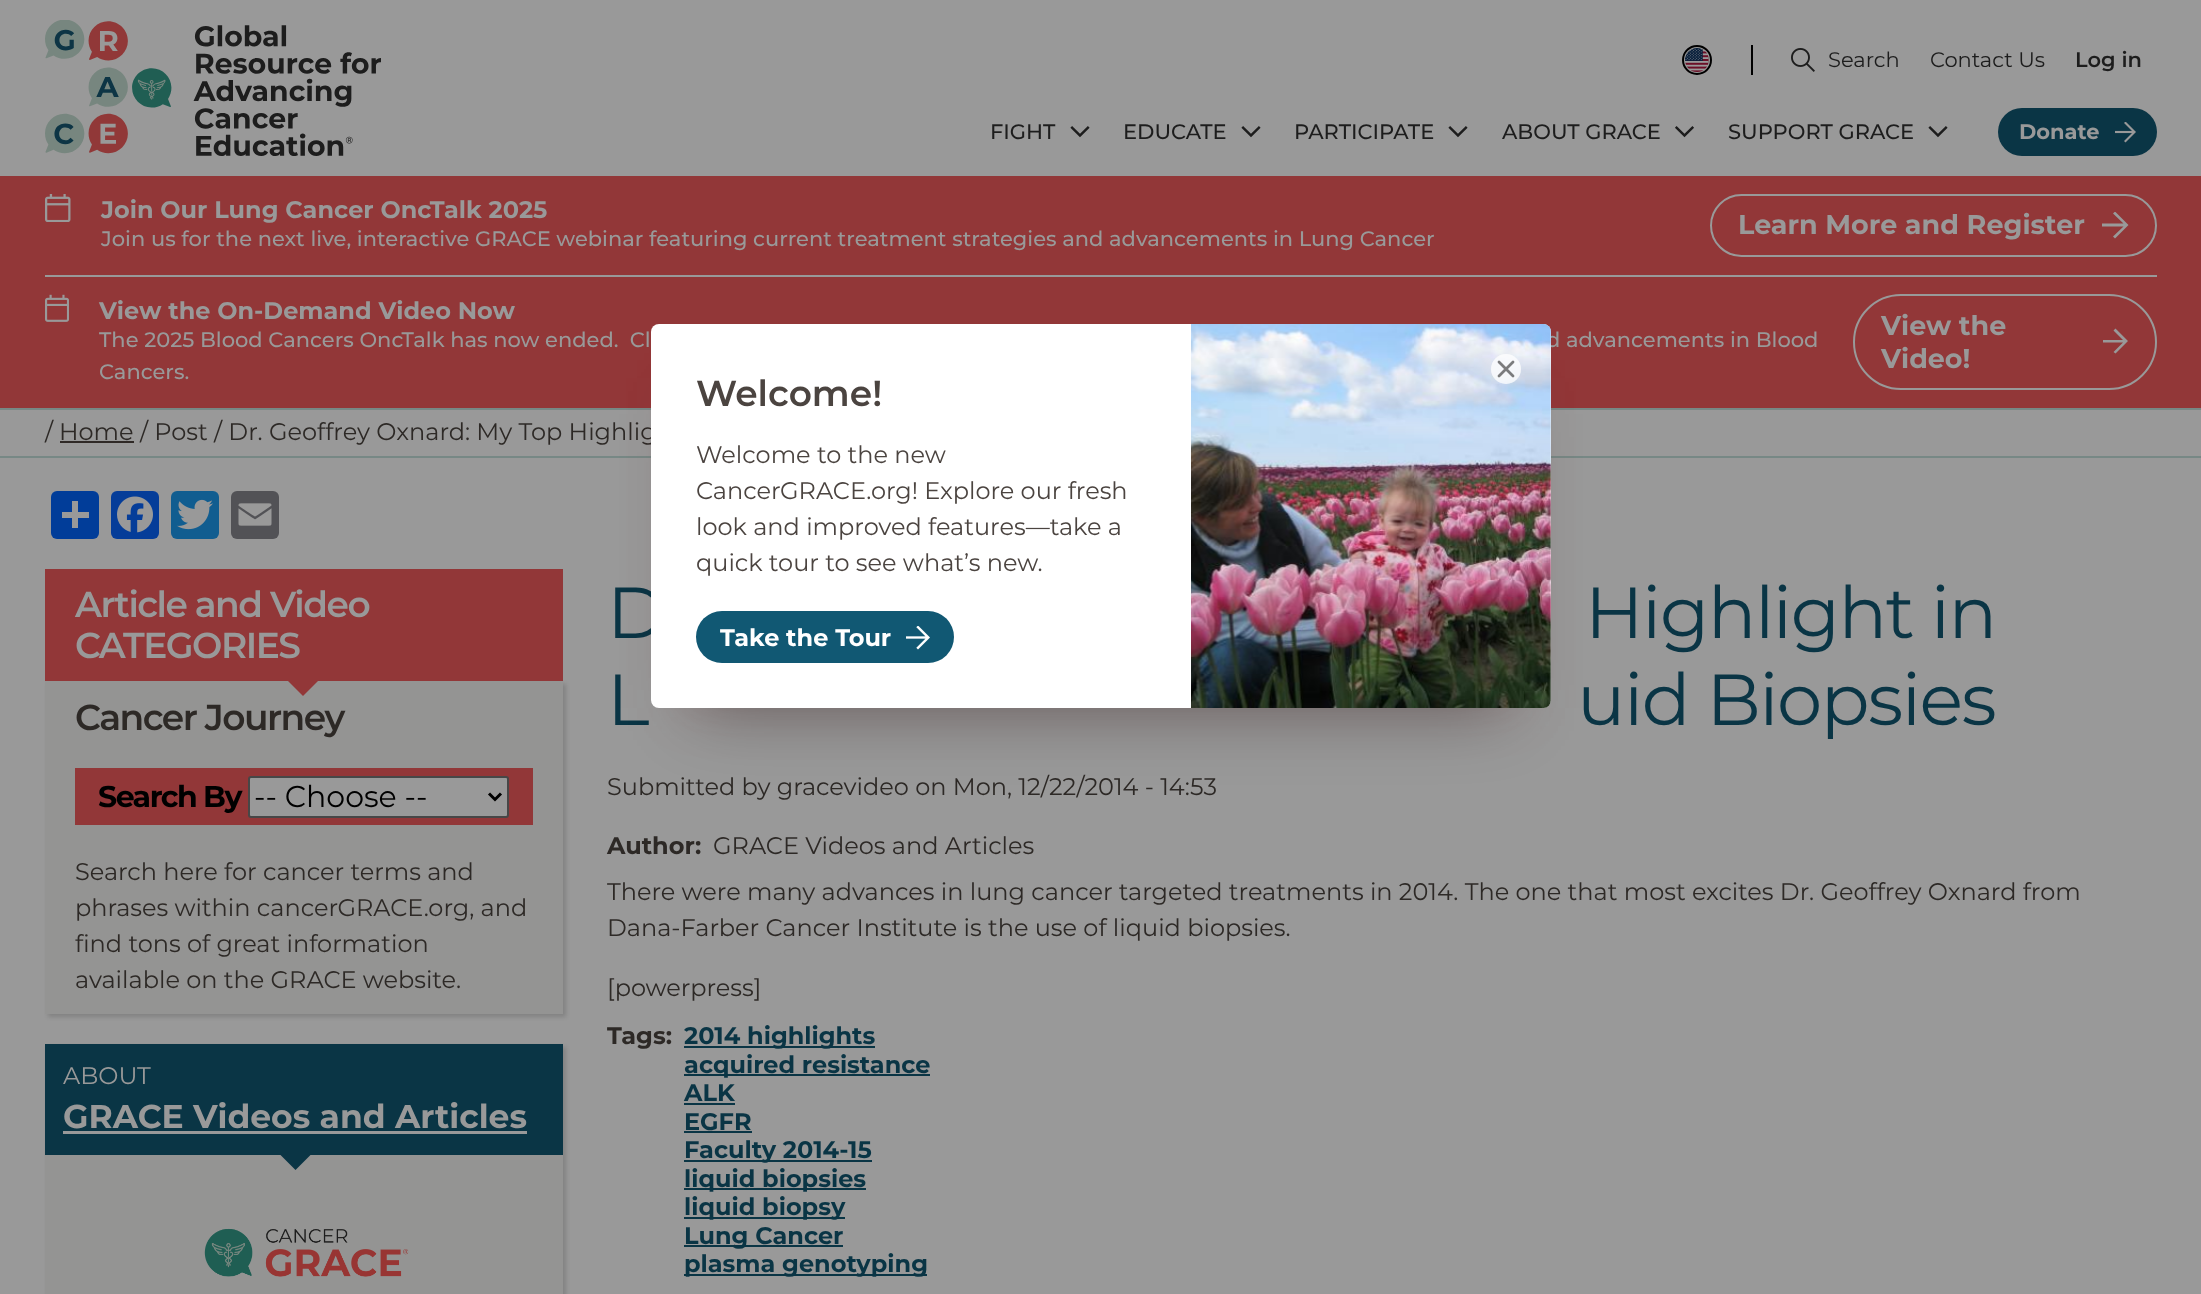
<svg xmlns="http://www.w3.org/2000/svg" width="2201" height="1294" viewBox="0 0 2201 1294">
  <defs>
    <clipPath id="clip1"><rect x="2102" y="212" width="27" height="27"/></clipPath>
  </defs>
  <rect width="100%" height="100%" fill="rgb(153,153,153)"/>
  <image x="45" y="20" width="336" height="136" href="pic1.png"/>
  <rect x="1751" y="45" width="2" height="30" fill="rgb(0,0,0)"/>
  <circle cx="1697" cy="60" r="15" fill="rgb(130,134,130)"/>
  <image x="1685" y="48" width="24" height="24" href="pic2.png"/>
  <circle cx="1697" cy="60" r="13.5" fill="none" stroke="rgb(153,153,153)" stroke-width="3"/>
  <circle cx="1697" cy="60" r="14" fill="none" stroke="rgb(0,0,0)" stroke-width="2"/>
  <image x="1791" y="48" width="24" height="24" href="pic3.png"/>
  <g font-family="Montserrat" font-size="21" fill="rgb(29,29,29)">
    <text x="1828" y="67">Search</text>
    <text x="1930" y="67">Contact Us</text>
  </g>
  <text x="2075" y="67" font-family="Montserrat" font-size="21" font-weight="600" fill="rgb(29,29,29)">Log in</text>
  <image x="1070" y="126" width="20" height="12" href="pic4.png"/>
  <text x="990" y="139" font-family="Montserrat" font-size="21" font-weight="500" fill="rgb(29,29,29)">FIGHT</text>
  <image x="1241" y="126" width="20" height="12" href="pic4.png"/>
  <text x="1123" y="139" font-family="Montserrat" font-size="21" font-weight="500" fill="rgb(29,29,29)">EDUCATE</text>
  <image x="1448" y="126" width="20" height="12" href="pic4.png"/>
  <text x="1294" y="139" font-family="Montserrat" font-size="21" font-weight="500" fill="rgb(29,29,29)">PARTICIPATE</text>
  <image x="1675" y="126" width="19" height="12" href="pic5.png"/>
  <text x="1502" y="139" font-family="Montserrat" font-size="21" font-weight="500" fill="rgb(29,29,29)">ABOUT GRACE</text>
  <image x="1928" y="126" width="20" height="12" href="pic4.png"/>
  <text x="1728" y="139" font-family="Montserrat" font-size="21" font-weight="500" fill="rgb(29,29,29)">SUPPORT GRACE</text>
  <rect x="1998" y="108" width="159" height="48" rx="24" fill="rgb(10,53,69)"/>
  <text x="2019" y="139" font-family="Montserrat" font-size="21" font-weight="bold" fill="rgb(153,153,153)">Donate</text>
  <image x="2115" y="122" width="21" height="21" href="pic6.png"/>
  <rect x="0" y="176" width="2201" height="232" fill="rgb(146,55,56)"/>
  <image x="45" y="194" width="26" height="28" href="pic7.png"/>
  <text x="101" y="218" font-family="Montserrat" font-size="24" font-weight="bold" fill="rgb(153,153,153)">Join Our Lung Cancer OncTalk 2025</text>
  <text x="101" y="246" font-family="Montserrat" font-size="21" font-weight="500" fill="rgb(153,153,153)">Join us for the next live, interactive GRACE webinar featuring current treatment strategies and advancements in Lung Cancer</text>
  <rect x="1711" y="195" width="445" height="61" rx="30.5" fill="none" stroke="rgb(153,153,153)" stroke-width="2"/>
  <text x="1738" y="234" font-family="Montserrat" font-size="27" font-weight="bold" fill="rgb(153,153,153)">Learn More and Register</text>
  <g clip-path="url(#clip1)">
    <path d="M2123.5 226.5H2101.5V223.5H2123.5L2113 213.5L2115 211.5L2128.5 225L2115 238.5L2113 236.5Z" fill="rgb(153,153,153)"/>
  </g>
  <rect x="45" y="275" width="2112" height="2" fill="rgb(153,153,153)"/>
  <image x="45" y="294" width="24" height="28" href="pic8.png"/>
  <text x="99" y="319" font-family="Montserrat" font-size="24" font-weight="bold" fill="rgb(153,153,153)">View the On-Demand Video Now</text>
  <g font-family="Montserrat" font-size="21" font-weight="500" fill="rgb(153,153,153)">
    <text x="99" y="347" xml:space="preserve">The 2025 Blood Cancers OncTalk has now ended.  Cl</text>
    <text x="1546" y="347">d advancements in Blood</text>
    <text x="99" y="379">Cancers.</text>
  </g>
  <rect x="1854" y="295" width="302" height="94" rx="47" fill="none" stroke="rgb(153,153,153)" stroke-width="2"/>
  <text x="1881" y="335" font-family="Montserrat" font-size="27" font-weight="bold" fill="rgb(153,153,153)">View the</text>
  <path d="M2123 342.5H2103V340H2123L2113.5 330.5L2115.5 328.5L2128 341L2115.5 353.5L2113.5 352Z" fill="rgb(153,153,153)"/>
  <text x="1881" y="368" font-family="Montserrat" font-size="27" font-weight="bold" fill="rgb(153,153,153)">Video!</text>
  <rect x="0" y="408" width="2201" height="2" fill="rgb(119,136,133)"/>
  <rect x="0" y="456" width="2201" height="2" fill="rgb(119,136,133)"/>
  <g font-family="Montserrat" font-size="24" fill="rgb(45,41,38)">
    <text x="45" y="440">/</text>
    <text x="59" y="440">Home</text>
  </g>
  <rect x="60" y="441" width="74" height="2" fill="rgb(47,41,38)"/>
  <text x="140" y="440" font-family="Montserrat" font-size="24" fill="rgb(45,41,38)">/ Post / Dr. Geoffrey Oxnard: My Top Highlig</text>
  <rect x="51" y="491" width="48" height="48" rx="6" fill="rgb(1,61,153)"/>
  <rect x="72" y="501" width="6" height="27" fill="rgb(153,153,153)"/>
  <rect x="62" y="512" width="27" height="6" fill="rgb(153,153,153)"/>
  <rect x="111" y="491" width="48" height="48" rx="6" fill="rgb(5,61,153)"/>
  <image x="117" y="496" width="36" height="37" href="pic9.png"/>
  <rect x="171" y="491" width="48" height="48" rx="6" fill="rgb(17,93,144)"/>
  <image x="177" y="499" width="36" height="31" href="pic10.png"/>
  <rect x="231" y="491" width="48" height="48" rx="6" fill="rgb(82,82,86)"/>
  <image x="238" y="503" width="34" height="23" href="pic11.png"/>
  <rect x="48" y="684" width="518" height="333" fill="rgba(0,0,0,0.15)" filter="blur(2px)"/>
  <rect x="45" y="569" width="518" height="112" fill="rgb(146,55,56)"/>
  <g font-family="Montserrat" font-size="36" font-weight="600" letter-spacing="-1.5" fill="rgb(153,153,153)">
    <text>
      <tspan x="75" y="617">Article and Video</tspan>
      <tspan x="75" y="658">CATEGORIES</tspan>
    </text>
  </g>
  <rect x="45" y="681" width="518" height="333" fill="rgb(148,148,147)"/>
  <path d="M288 681H318L303 696Z" fill="rgb(146,55,56)"/>
  <text x="75" y="730" font-family="Montserrat" font-size="36" font-weight="600" letter-spacing="-1.5" fill="rgb(45,41,38)">Cancer Journey</text>
  <rect x="75" y="768" width="458" height="57" fill="rgb(146,55,56)"/>
  <text x="98" y="807" font-family="Montserrat" font-size="30" font-weight="bold" letter-spacing="-1.5" fill="rgb(0,0,0)">Search By</text>
  <rect x="249" y="777" width="259" height="40" rx="2" fill="rgb(153,153,153)" stroke="rgb(71,71,71)" stroke-width="2"/>
  <path d="M489 793.5L495 799.5L501 793.5" fill="none" stroke="rgb(0,0,0)" stroke-width="3"/>
  <text x="254" y="807" font-family="Montserrat" font-size="30" fill="rgb(0,0,0)">-- Choose --</text>
  <g font-family="Montserrat" font-size="24" fill="rgb(45,41,38)">
    <text>
      <tspan x="75" y="880">Search here for cancer terms and</tspan>
      <tspan x="75" y="916">phrases within cancerGRACE.org, and</tspan>
      <tspan x="75" y="952">find tons of great information</tspan>
      <tspan x="75" y="988">available on the GRACE website.</tspan>
    </text>
  </g>
  <rect x="48" y="1047" width="518" height="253" fill="rgba(0,0,0,0.15)" filter="blur(2px)"/>
  <rect x="45" y="1155" width="518" height="139" fill="rgb(148,148,147)"/>
  <rect x="45" y="1044" width="518" height="111" fill="rgb(10,53,69)"/>
  <text x="63" y="1084" font-family="Montserrat" font-size="24" fill="rgb(153,153,153)">ABOUT</text>
  <text x="63" y="1128" font-family="Montserrat" font-size="33" font-weight="bold" fill="rgb(153,153,153)">GRACE Videos and Articles</text>
  <rect x="63" y="1131" width="464" height="3" fill="rgb(153,153,153)"/>
  <path d="M280.5 1155H310.5L295.5 1170Z" fill="rgb(10,53,69)"/>
  <image x="204" y="1228" width="205" height="49" href="pic12.png"/>
  <g font-family="Montserrat" font-size="72" letter-spacing="-1.5" fill="rgb(10,53,69)">
    <text x="607" y="638">D</text>
    <text x="1585" y="638">Highlight in</text>
    <text x="607" y="725">L</text>
    <text x="1577" y="725">uid Biopsies</text>
  </g>
  <text x="607" y="795" font-family="Montserrat" font-size="24" fill="rgb(45,41,38)">Submitted by gracevideo on Mon, 12/22/2014 - 14:53</text>
  <text x="607" y="854" font-family="Montserrat" font-size="24" font-weight="bold" fill="rgb(45,41,38)">Author:</text>
  <g font-family="Montserrat" font-size="24" fill="rgb(45,41,38)">
    <text x="713" y="854">GRACE Videos and Articles</text>
    <text>
      <tspan x="607" y="900">There were many advances in lung cancer targeted treatments in 2014. The one that most excites Dr. Geoffrey Oxnard from</tspan>
      <tspan x="607" y="936">Dana-Farber Cancer Institute is the use of liquid biopsies.</tspan>
    </text>
    <text x="607" y="996">[powerpress]</text>
  </g>
  <text x="607" y="1044" font-family="Montserrat" font-size="24" font-weight="bold" fill="rgb(45,41,38)">Tags:</text>
  <rect x="684" y="1046" width="191" height="2" fill="rgb(10,53,69)"/>
  <text x="684" y="1044" font-family="Montserrat" font-size="24" font-weight="bold" fill="rgb(10,53,69)">2014 highlights</text>
  <rect x="684" y="1074" width="246" height="2" fill="rgb(10,53,69)"/>
  <g font-family="Montserrat" font-size="24" font-weight="bold" fill="rgb(10,53,69)">
    <text>
      <tspan x="684" y="1073">acquired resistance</tspan>
      <tspan x="684" y="1101">ALK</tspan>
    </text>
  </g>
  <rect x="684" y="1103" width="51" height="2" fill="rgb(10,53,69)"/>
  <text x="684" y="1130" font-family="Montserrat" font-size="24" font-weight="bold" fill="rgb(10,53,69)">EGFR</text>
  <rect x="684" y="1131" width="68" height="2" fill="rgb(10,53,69)"/>
  <rect x="684" y="1160" width="188" height="2" fill="rgb(10,53,69)"/>
  <text x="684" y="1158" font-family="Montserrat" font-size="24" font-weight="bold" fill="rgb(10,53,69)">Faculty 2014-15</text>
  <rect x="684" y="1188" width="182" height="2" fill="rgb(10,53,69)"/>
  <text x="684" y="1187" font-family="Montserrat" font-size="24" font-weight="bold" fill="rgb(10,53,69)">liquid biopsies</text>
  <rect x="684" y="1217" width="161" height="2" fill="rgb(10,53,69)"/>
  <text x="684" y="1215" font-family="Montserrat" font-size="24" font-weight="bold" fill="rgb(10,53,69)">liquid biopsy</text>
  <rect x="684" y="1245" width="159" height="2" fill="rgb(10,53,69)"/>
  <text x="684" y="1244" font-family="Montserrat" font-size="24" font-weight="bold" fill="rgb(10,53,69)">Lung Cancer</text>
  <rect x="684" y="1274" width="243" height="2" fill="rgb(10,53,69)"/>
  <text x="684" y="1272" font-family="Montserrat" font-size="24" font-weight="bold" fill="rgb(10,53,69)">plasma genotyping</text>
  <rect x="678" y="378" width="846" height="330" fill="rgba(254,89,85,0.1)" filter="blur(27px)"/>
  <rect x="696" y="414" width="810" height="294" fill="rgba(0,0,0,0.4)" filter="blur(34px)"/>
  <rect x="651" y="324" width="900" height="384" rx="8" fill="rgb(255,255,255)"/>
  <image x="1191" y="324" width="360" height="384" href="pic13.png"/>
  <circle cx="1506" cy="369" r="15" fill="rgba(255,255,255,0.5)"/>
  <circle cx="1506" cy="369" r="15" fill="rgba(255,255,255,0.5)"/>
  <path d="M1499 376L1513 362M1499 362L1513 376" fill="none" stroke="rgba(0,0,0,0.5)" stroke-width="2.8" stroke-linecap="round"/>
  <text x="696" y="406" font-family="Montserrat" font-size="36" font-weight="600" fill="rgb(75,68,64)">Welcome!</text>
  <g font-family="Montserrat" font-size="24" fill="rgb(75,68,64)">
    <text>
      <tspan x="696" y="463">Welcome to the new</tspan>
      <tspan x="696" y="499">CancerGRACE.org! Explore our fresh</tspan>
      <tspan x="696" y="535">look and improved features—take a</tspan>
      <tspan x="696" y="571">quick tour to see what’s new.</tspan>
    </text>
  </g>
  <rect x="696" y="611" width="258" height="52" rx="26" fill="rgb(17,88,115)"/>
  <text x="720" y="646" font-family="Montserrat" font-size="24" font-weight="bold" fill="rgb(255,255,255)">Take the Tour</text>
  <image x="906" y="626" width="24" height="24" href="pic14.png"/>
</svg>
